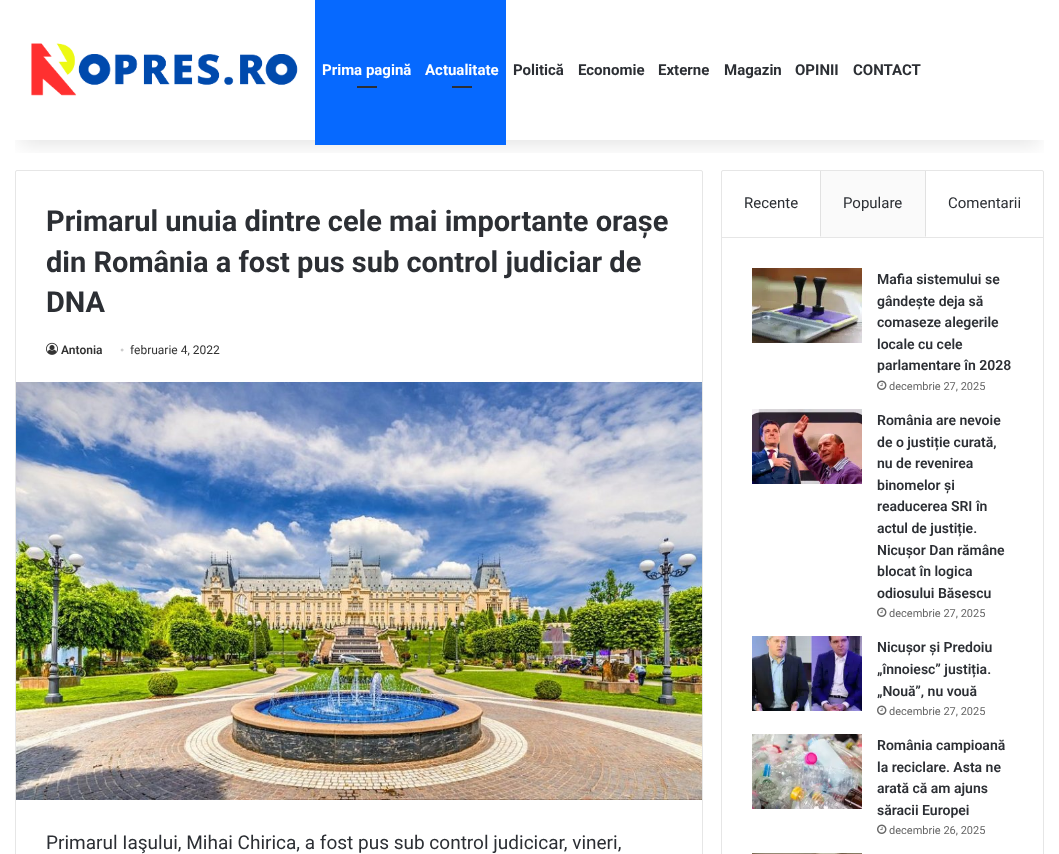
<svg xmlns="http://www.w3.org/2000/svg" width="1059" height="854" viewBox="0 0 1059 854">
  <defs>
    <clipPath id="clip1"><rect x="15" y="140" width="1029" height="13"/></clipPath>
  </defs>
  <rect width="100%" height="100%" fill="rgb(255,255,255)"/>
  <rect x="15.5" y="170.5" width="687" height="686" rx="1.5" fill="none" stroke="rgb(230,230,230)"/>
  <rect x="721.5" y="170.5" width="322" height="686" rx="1.5" fill="none" stroke="rgb(230,230,230)"/>
  <path d="M821 171V237L820 236V171Z" fill="rgb(225,225,225)"/>
  <rect x="821" y="171" width="105" height="66" fill="rgb(250,250,250)"/>
  <path d="M926 171V237L925 236V171Z" fill="rgb(225,225,225)"/>
  <g clip-path="url(#clip1)">
    <rect x="20" y="45" width="1019" height="100" fill="rgba(0,0,0,0.1)" filter="blur(10px)"/>
  </g>
  <image x="31" y="43" width="267" height="53" href="pic1.png"/>
  <rect x="315" y="140" width="191" height="5" fill="rgb(6,105,255)"/>
  <rect x="315" y="0" width="191" height="140" fill="rgb(6,105,255)"/>
  <text x="322" y="75" font-family="Roboto" font-size="15" font-weight="bold" fill="rgb(255,255,255)">Prima pagină</text>
  <rect x="357" y="86" width="20" height="2" fill="rgb(44,47,52)"/>
  <text x="425" y="75" font-family="Roboto" font-size="15" font-weight="bold" fill="rgb(255,255,255)">Actualitate</text>
  <rect x="452" y="86" width="20" height="2" fill="rgb(44,47,52)"/>
  <g font-family="Roboto" font-size="15" font-weight="bold" fill="rgb(44,47,52)">
    <text x="513" y="75">Politică</text>
    <text x="578" y="75">Economie</text>
    <text x="658" y="75">Externe</text>
    <text x="724" y="75">Magazin</text>
    <text x="795" y="75">OPINII</text>
    <text x="853" y="75">CONTACT</text>
  </g>
  <g font-family="Roboto" font-size="29" font-weight="bold" fill="rgb(44,47,52)">
    <text>
      <tspan x="46" y="231">Primarul unuia dintre cele mai importante orașe</tspan>
      <tspan x="46" y="272">din România a fost pus sub control judiciar de</tspan>
      <tspan x="46" y="312">DNA</tspan>
    </text>
  </g>
  <image x="46" y="342" width="12" height="13" href="pic2.png"/>
  <text x="61" y="354" font-family="Roboto" font-size="12" font-weight="600" fill="rgb(51,51,51)">Antonia</text>
  <text x="120" y="354" font-family="Liberation Serif" font-size="12" fill="rgb(204,204,204)">•</text>
  <text x="130" y="354" font-family="Roboto" font-size="12" fill="rgb(51,51,51)">februarie 4, 2022</text>
  <image x="16" y="382" width="686" height="418" href="pic3.png"/>
  <text x="46" y="849" font-family="Roboto" font-size="19" fill="rgb(44,47,52)">Primarul Iaşului, Mihai Chirica, a fost pus sub control judicicar, vineri,</text>
  <rect x="722" y="237" width="321" height="1" fill="rgb(230,230,230)"/>
  <g font-family="Roboto" font-size="15" fill="rgb(44,47,52)">
    <text x="744" y="208">Recente</text>
    <text x="843" y="208">Populare</text>
    <text x="948" y="208">Comentarii</text>
  </g>
  <image x="752" y="268" width="110" height="75" href="pic4.png"/>
  <g font-family="Roboto" font-size="14" font-weight="600" fill="rgb(44,47,52)">
    <text>
      <tspan x="877" y="284">Mafia sistemului se</tspan>
      <tspan x="877" y="306">gândește deja să</tspan>
      <tspan x="877" y="327">comaseze alegerile</tspan>
      <tspan x="877" y="349">locale cu cele</tspan>
      <tspan x="877" y="370">parlamentare în 2028</tspan>
    </text>
  </g>
  <image x="877" y="380" width="10" height="10" href="pic5.png"/>
  <text x="889" y="390" font-family="Roboto" font-size="11" fill="rgb(102,102,102)">decembrie 27, 2025</text>
  <image x="752" y="409" width="110" height="75" href="pic6.png"/>
  <g font-family="Roboto" font-size="14" font-weight="600" fill="rgb(44,47,52)">
    <text>
      <tspan x="877" y="425">România are nevoie</tspan>
      <tspan x="877" y="447">de o justiție curată,</tspan>
      <tspan x="877" y="468">nu de revenirea</tspan>
      <tspan x="877" y="490">binomelor și</tspan>
      <tspan x="877" y="511">readucerea SRI în</tspan>
      <tspan x="877" y="533">actul de justiție.</tspan>
      <tspan x="877" y="555">Nicușor Dan rămâne</tspan>
      <tspan x="877" y="576">blocat în logica</tspan>
      <tspan x="877" y="598">odiosului Băsescu</tspan>
    </text>
  </g>
  <image x="877" y="607" width="10" height="10" href="pic5.png"/>
  <text x="889" y="617" font-family="Roboto" font-size="11" fill="rgb(102,102,102)">decembrie 27, 2025</text>
  <image x="752" y="636" width="110" height="75" href="pic7.png"/>
  <g font-family="Roboto" font-size="14" font-weight="600" fill="rgb(44,47,52)">
    <text>
      <tspan x="877" y="652">Nicușor și Predoiu</tspan>
      <tspan x="877" y="674">„înnoiesc” justiția.</tspan>
      <tspan x="877" y="696">„Nouă”, nu vouă</tspan>
    </text>
  </g>
  <image x="877" y="705" width="10" height="10" href="pic5.png"/>
  <text x="889" y="715" font-family="Roboto" font-size="11" fill="rgb(102,102,102)">decembrie 27, 2025</text>
  <image x="752" y="734" width="110" height="75" href="pic8.png"/>
  <g font-family="Roboto" font-size="14" font-weight="600" fill="rgb(44,47,52)">
    <text>
      <tspan x="877" y="750">România campioană</tspan>
      <tspan x="877" y="772">la reciclare. Asta ne</tspan>
      <tspan x="877" y="793">arată că am ajuns</tspan>
      <tspan x="877" y="815">săracii Europei</tspan>
    </text>
  </g>
  <image x="877" y="824" width="10" height="10" href="pic5.png"/>
  <text x="889" y="834" font-family="Roboto" font-size="11" fill="rgb(102,102,102)">decembrie 26, 2025</text>
  <image x="752" y="853" width="110" height="1" href="pic9.png"/>
</svg>
